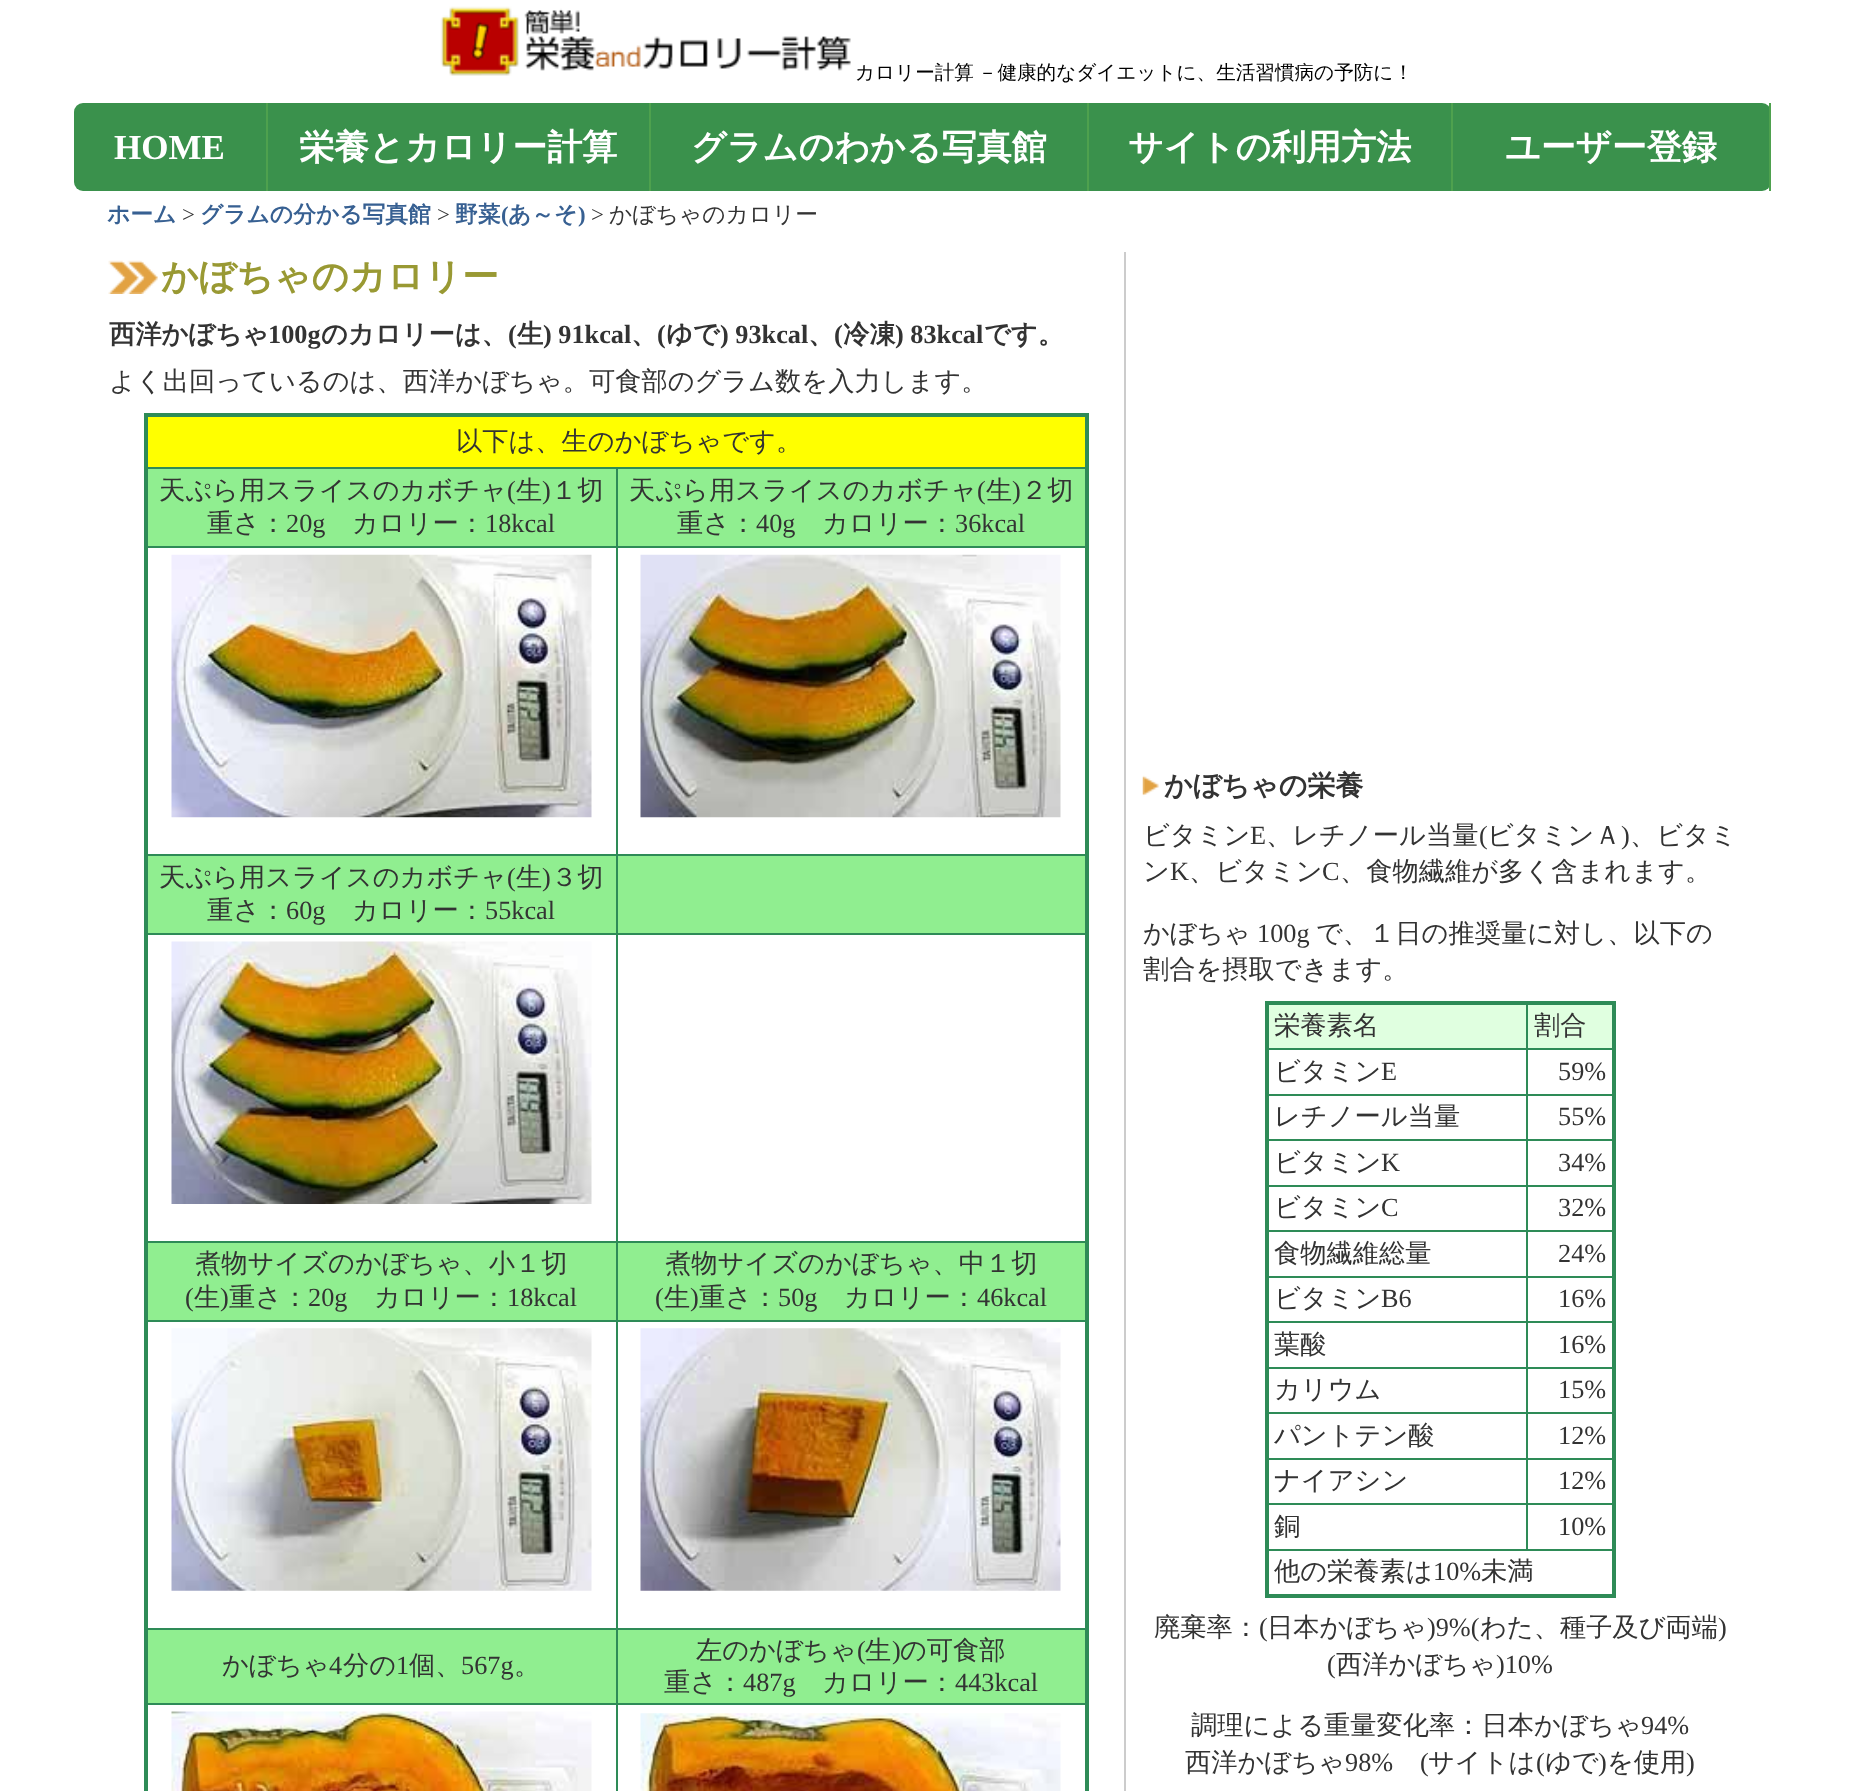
<svg xmlns="http://www.w3.org/2000/svg" width="1853" height="1791" viewBox="0 0 1853 1791">
  <rect width="100%" height="100%" fill="rgb(255,255,255)"/>
  <image x="440" y="6" width="411" height="70" href="pic1.png"/>
  <text x="855" y="79" word-spacing="-2" font-family="WenQuanYi Zen Hei" font-size="19.6" font-weight="500" fill="rgb(0,0,0)">カロリー計算 －健康的なダイエットに、生活習慣病の予防に！</text>
  <rect x="74" y="103" width="1697" height="88" rx="9" fill="rgb(58,145,76)"/>
  <rect x="266" y="103" width="2" height="88" fill="rgb(78,161,78)"/>
  <text x="114" y="159" font-family="Liberation Serif" font-size="35" font-weight="bold" fill="rgb(255,255,255)">HOME</text>
  <rect x="649" y="103" width="2" height="88" fill="rgb(78,161,78)"/>
  <text x="299" y="159" font-family="WenQuanYi Zen Hei" font-size="35" font-weight="bold" fill="rgb(255,255,255)">栄養とカロリー計算</text>
  <rect x="1087" y="103" width="2" height="88" fill="rgb(78,161,78)"/>
  <text x="691" y="159" font-family="WenQuanYi Zen Hei" font-size="35" font-weight="bold" fill="rgb(255,255,255)">グラムのわかる写真館</text>
  <rect x="1451" y="103" width="2" height="88" fill="rgb(78,161,78)"/>
  <text x="1128" y="159" font-family="WenQuanYi Zen Hei" font-size="35" font-weight="bold" fill="rgb(255,255,255)">サイトの利用方法</text>
  <rect x="1769" y="103" width="2" height="88" fill="rgb(78,161,78)"/>
  <text x="1505" y="159" font-family="WenQuanYi Zen Hei" font-size="35" font-weight="bold" fill="rgb(255,255,255)">ユーザー登録</text>
  <text x="107" y="222" font-family="WenQuanYi Zen Hei" font-size="22.75" font-weight="bold" fill="rgb(55,96,146)">ホーム</text>
  <text x="182" y="222" font-family="Liberation Serif" font-size="22.75" fill="rgb(51,51,51)">&gt;</text>
  <text x="200" y="222" font-family="WenQuanYi Zen Hei" font-size="22.75" font-weight="bold" fill="rgb(55,96,146)">グラムの分かる写真館</text>
  <text x="437" y="222" font-family="Liberation Serif" font-size="22.75" fill="rgb(51,51,51)">&gt;</text>
  <text x="455" y="222" font-family="WenQuanYi Zen Hei" font-size="22.75" font-weight="bold" fill="rgb(55,96,146)">野菜</text>
  <text x="501" y="222" font-family="Liberation Serif" font-size="22.75" font-weight="bold" fill="rgb(55,96,146)">(</text>
  <text x="508" y="222" font-family="WenQuanYi Zen Hei" font-size="22.75" font-weight="bold" fill="rgb(55,96,146)">あ～そ</text>
  <text x="578" y="222" font-family="Liberation Serif" font-size="22.75" font-weight="bold" fill="rgb(55,96,146)">)</text>
  <text x="591" y="222" font-family="Liberation Serif" font-size="22.75" fill="rgb(51,51,51)">&gt;</text>
  <text x="609" y="222" font-family="WenQuanYi Zen Hei" font-size="22.75" font-weight="500" fill="rgb(51,51,51)">かぼちゃのカロリー</text>
  <rect x="1124" y="252" width="2" height="1539" fill="rgb(204,204,204)"/>
  <image x="108" y="260" width="50" height="34" href="pic2.png"/>
  <text x="161" y="289" font-family="WenQuanYi Zen Hei" font-size="36.75" font-weight="bold" fill="rgb(153,153,51)">かぼちゃのカロリー</text>
  <text x="109" y="343" font-family="WenQuanYi Zen Hei" font-size="26.25" font-weight="bold" fill="rgb(51,51,51)">西洋かぼちゃ</text>
  <text x="268" y="343" font-family="Liberation Serif" font-size="26.25" font-weight="bold" fill="rgb(51,51,51)">100g</text>
  <text x="321" y="343" font-family="WenQuanYi Zen Hei" font-size="26.25" font-weight="bold" fill="rgb(51,51,51)">のカロリーは、</text>
  <text x="508" y="343" font-family="Liberation Serif" font-size="26.25" font-weight="bold" fill="rgb(51,51,51)">(</text>
  <text x="517" y="343" font-family="WenQuanYi Zen Hei" font-size="26.25" font-weight="bold" fill="rgb(51,51,51)">生</text>
  <text x="543" y="343" font-family="Liberation Serif" font-size="26.25" font-weight="bold" fill="rgb(51,51,51)">) 91kcal</text>
  <text x="631" y="343" font-family="WenQuanYi Zen Hei" font-size="26.25" font-weight="bold" fill="rgb(51,51,51)">、</text>
  <text x="657" y="343" font-family="Liberation Serif" font-size="26.25" font-weight="bold" fill="rgb(51,51,51)">(</text>
  <text x="666" y="343" font-family="WenQuanYi Zen Hei" font-size="26.25" font-weight="bold" fill="rgb(51,51,51)">ゆで</text>
  <text x="720" y="343" font-family="Liberation Serif" font-size="26.25" font-weight="bold" fill="rgb(51,51,51)">) 93kcal</text>
  <text x="808" y="343" font-family="WenQuanYi Zen Hei" font-size="26.25" font-weight="bold" fill="rgb(51,51,51)">、</text>
  <text x="834" y="343" font-family="Liberation Serif" font-size="26.25" font-weight="bold" fill="rgb(51,51,51)">(</text>
  <text x="843" y="343" font-family="WenQuanYi Zen Hei" font-size="26.25" font-weight="bold" fill="rgb(51,51,51)">冷凍</text>
  <text x="895" y="343" font-family="Liberation Serif" font-size="26.25" font-weight="bold" fill="rgb(51,51,51)">) 83kcal</text>
  <text x="984" y="343" font-family="WenQuanYi Zen Hei" font-size="26.25" font-weight="bold" fill="rgb(51,51,51)">です。</text>
  <text x="109" y="390" font-family="WenQuanYi Zen Hei" font-size="26.25" font-weight="500" fill="rgb(51,51,51)">よく出回っているのは、西洋かぼちゃ。可食部のグラム数を入力します。</text>
  <rect x="144" y="413" width="945" height="4" fill="rgb(46,139,87)"/>
  <rect x="616" y="467" width="473" height="2" fill="rgb(46,139,87)"/>
  <rect x="616" y="546" width="473" height="2" fill="rgb(46,139,87)"/>
  <rect x="616" y="854" width="473" height="2" fill="rgb(46,139,87)"/>
  <rect x="616" y="933" width="473" height="2" fill="rgb(46,139,87)"/>
  <rect x="616" y="1241" width="473" height="2" fill="rgb(46,139,87)"/>
  <rect x="616" y="1320" width="473" height="2" fill="rgb(46,139,87)"/>
  <rect x="616" y="1628" width="473" height="2" fill="rgb(46,139,87)"/>
  <rect x="616" y="1703" width="473" height="2" fill="rgb(46,139,87)"/>
  <rect x="1085" y="413" width="4" height="1378" fill="rgb(46,139,87)"/>
  <rect x="616" y="1703" width="2" height="88" fill="rgb(46,139,87)"/>
  <rect x="145" y="1703" width="473" height="2" fill="rgb(46,139,87)"/>
  <rect x="616" y="1628" width="2" height="77" fill="rgb(46,139,87)"/>
  <rect x="145" y="1628" width="473" height="2" fill="rgb(46,139,87)"/>
  <rect x="616" y="1320" width="2" height="309" fill="rgb(46,139,87)"/>
  <rect x="145" y="1320" width="473" height="2" fill="rgb(46,139,87)"/>
  <rect x="616" y="1241" width="2" height="80" fill="rgb(46,139,87)"/>
  <rect x="145" y="1241" width="473" height="2" fill="rgb(46,139,87)"/>
  <rect x="616" y="933" width="2" height="310" fill="rgb(46,139,87)"/>
  <rect x="145" y="933" width="473" height="2" fill="rgb(46,139,87)"/>
  <rect x="616" y="854" width="2" height="81" fill="rgb(46,139,87)"/>
  <rect x="145" y="854" width="473" height="2" fill="rgb(46,139,87)"/>
  <rect x="616" y="546" width="2" height="310" fill="rgb(46,139,87)"/>
  <rect x="145" y="546" width="473" height="2" fill="rgb(46,139,87)"/>
  <rect x="616" y="467" width="2" height="81" fill="rgb(46,139,87)"/>
  <rect x="145" y="467" width="473" height="2" fill="rgb(46,139,87)"/>
  <rect x="144" y="413" width="4" height="1378" fill="rgb(46,139,87)"/>
  <rect x="148" y="417" width="937" height="50" fill="rgb(255,255,0)"/>
  <text x="456" y="450" font-family="WenQuanYi Zen Hei" font-size="26.25" font-weight="500" fill="rgb(51,51,51)">以下は、生のかぼちゃです。</text>
  <rect x="148" y="469" width="468" height="77" fill="rgb(144,238,144)"/>
  <text x="159" y="499" font-family="WenQuanYi Zen Hei" font-size="26.25" font-weight="500" fill="rgb(51,51,51)">天ぷら用スライスのカボチャ</text>
  <text x="507" y="499" font-family="Liberation Serif" font-size="26.25" fill="rgb(51,51,51)">(</text>
  <text x="516" y="499" font-family="WenQuanYi Zen Hei" font-size="26.25" font-weight="500" fill="rgb(51,51,51)">生</text>
  <text x="542" y="499" font-family="Liberation Serif" font-size="26.25" fill="rgb(51,51,51)">)</text>
  <g font-family="WenQuanYi Zen Hei" font-size="26.25" font-weight="500" fill="rgb(51,51,51)">
    <text x="551" y="499">１切</text>
    <text x="207" y="532">重さ：</text>
  </g>
  <text x="286" y="532" font-family="Liberation Serif" font-size="26.25" fill="rgb(51,51,51)">20g</text>
  <text x="352" y="532" font-family="WenQuanYi Zen Hei" font-size="26.25" font-weight="500" fill="rgb(51,51,51)">カロリー：</text>
  <text x="485" y="532" font-family="Liberation Serif" font-size="26.25" fill="rgb(51,51,51)">18kcal</text>
  <rect x="618" y="469" width="467" height="77" fill="rgb(144,238,144)"/>
  <text x="629" y="499" font-family="WenQuanYi Zen Hei" font-size="26.25" font-weight="500" fill="rgb(51,51,51)">天ぷら用スライスのカボチャ</text>
  <text x="977" y="499" font-family="Liberation Serif" font-size="26.25" fill="rgb(51,51,51)">(</text>
  <text x="986" y="499" font-family="WenQuanYi Zen Hei" font-size="26.25" font-weight="500" fill="rgb(51,51,51)">生</text>
  <text x="1012" y="499" font-family="Liberation Serif" font-size="26.25" fill="rgb(51,51,51)">)</text>
  <g font-family="WenQuanYi Zen Hei" font-size="26.25" font-weight="500" fill="rgb(51,51,51)">
    <text x="1021" y="499">２切</text>
    <text x="677" y="532">重さ：</text>
  </g>
  <text x="756" y="532" font-family="Liberation Serif" font-size="26.25" fill="rgb(51,51,51)">40g</text>
  <text x="822" y="532" font-family="WenQuanYi Zen Hei" font-size="26.25" font-weight="500" fill="rgb(51,51,51)">カロリー：</text>
  <text x="955" y="532" font-family="Liberation Serif" font-size="26.25" fill="rgb(51,51,51)">36kcal</text>
  <image x="171" y="554" width="421" height="264" href="pic3.png"/>
  <image x="640" y="554" width="421" height="264" href="pic4.png"/>
  <rect x="148" y="856" width="468" height="77" fill="rgb(144,238,144)"/>
  <text x="159" y="886" font-family="WenQuanYi Zen Hei" font-size="26.25" font-weight="500" fill="rgb(51,51,51)">天ぷら用スライスのカボチャ</text>
  <text x="507" y="886" font-family="Liberation Serif" font-size="26.25" fill="rgb(51,51,51)">(</text>
  <text x="516" y="886" font-family="WenQuanYi Zen Hei" font-size="26.25" font-weight="500" fill="rgb(51,51,51)">生</text>
  <text x="542" y="886" font-family="Liberation Serif" font-size="26.25" fill="rgb(51,51,51)">)</text>
  <g font-family="WenQuanYi Zen Hei" font-size="26.25" font-weight="500" fill="rgb(51,51,51)">
    <text x="551" y="886">３切</text>
    <text x="207" y="919">重さ：</text>
  </g>
  <text x="286" y="919" font-family="Liberation Serif" font-size="26.25" fill="rgb(51,51,51)">60g</text>
  <text x="352" y="919" font-family="WenQuanYi Zen Hei" font-size="26.25" font-weight="500" fill="rgb(51,51,51)">カロリー：</text>
  <text x="485" y="919" font-family="Liberation Serif" font-size="26.25" fill="rgb(51,51,51)">55kcal</text>
  <rect x="618" y="856" width="467" height="77" fill="rgb(144,238,144)"/>
  <image x="171" y="941" width="421" height="263" href="pic5.png"/>
  <rect x="148" y="1243" width="468" height="77" fill="rgb(144,238,144)"/>
  <text x="195" y="1272" font-family="WenQuanYi Zen Hei" font-size="26.25" font-weight="500" fill="rgb(51,51,51)">煮物サイズのかぼちゃ、小１切</text>
  <text x="185" y="1306" font-family="Liberation Serif" font-size="26.25" fill="rgb(51,51,51)">(</text>
  <text x="194" y="1306" font-family="WenQuanYi Zen Hei" font-size="26.25" font-weight="500" fill="rgb(51,51,51)">生</text>
  <text x="220" y="1306" font-family="Liberation Serif" font-size="26.25" fill="rgb(51,51,51)">)</text>
  <text x="229" y="1306" font-family="WenQuanYi Zen Hei" font-size="26.25" font-weight="500" fill="rgb(51,51,51)">重さ：</text>
  <text x="308" y="1306" font-family="Liberation Serif" font-size="26.25" fill="rgb(51,51,51)">20g</text>
  <text x="374" y="1306" font-family="WenQuanYi Zen Hei" font-size="26.25" font-weight="500" fill="rgb(51,51,51)">カロリー：</text>
  <text x="507" y="1306" font-family="Liberation Serif" font-size="26.25" fill="rgb(51,51,51)">18kcal</text>
  <rect x="618" y="1243" width="467" height="77" fill="rgb(144,238,144)"/>
  <text x="665" y="1272" font-family="WenQuanYi Zen Hei" font-size="26.25" font-weight="500" fill="rgb(51,51,51)">煮物サイズのかぼちゃ、中１切</text>
  <text x="655" y="1306" font-family="Liberation Serif" font-size="26.25" fill="rgb(51,51,51)">(</text>
  <text x="664" y="1306" font-family="WenQuanYi Zen Hei" font-size="26.25" font-weight="500" fill="rgb(51,51,51)">生</text>
  <text x="690" y="1306" font-family="Liberation Serif" font-size="26.25" fill="rgb(51,51,51)">)</text>
  <text x="699" y="1306" font-family="WenQuanYi Zen Hei" font-size="26.25" font-weight="500" fill="rgb(51,51,51)">重さ：</text>
  <text x="778" y="1306" font-family="Liberation Serif" font-size="26.25" fill="rgb(51,51,51)">50g</text>
  <text x="844" y="1306" font-family="WenQuanYi Zen Hei" font-size="26.25" font-weight="500" fill="rgb(51,51,51)">カロリー：</text>
  <text x="977" y="1306" font-family="Liberation Serif" font-size="26.25" fill="rgb(51,51,51)">46kcal</text>
  <image x="171" y="1328" width="421" height="263" href="pic6.png"/>
  <image x="640" y="1328" width="421" height="263" href="pic7.png"/>
  <rect x="148" y="1630" width="468" height="73" fill="rgb(144,238,144)"/>
  <text x="222" y="1674" font-family="WenQuanYi Zen Hei" font-size="26.25" font-weight="500" fill="rgb(51,51,51)">かぼちゃ</text>
  <text x="329" y="1674" font-family="Liberation Serif" font-size="26.25" fill="rgb(51,51,51)">4</text>
  <text x="343" y="1674" font-family="WenQuanYi Zen Hei" font-size="26.25" font-weight="500" fill="rgb(51,51,51)">分の</text>
  <text x="396" y="1674" font-family="Liberation Serif" font-size="26.25" fill="rgb(51,51,51)">1</text>
  <text x="409" y="1674" font-family="WenQuanYi Zen Hei" font-size="26.25" font-weight="500" fill="rgb(51,51,51)">個、</text>
  <text x="461" y="1674" font-family="Liberation Serif" font-size="26.25" fill="rgb(51,51,51)">567g</text>
  <text x="514" y="1674" font-family="WenQuanYi Zen Hei" font-size="26.25" font-weight="500" fill="rgb(51,51,51)">。</text>
  <rect x="618" y="1630" width="467" height="73" fill="rgb(144,238,144)"/>
  <text x="696" y="1659" font-family="WenQuanYi Zen Hei" font-size="26.25" font-weight="500" fill="rgb(51,51,51)">左のかぼちゃ</text>
  <text x="857" y="1659" font-family="Liberation Serif" font-size="26.25" fill="rgb(51,51,51)">(</text>
  <text x="865" y="1659" font-family="WenQuanYi Zen Hei" font-size="26.25" font-weight="500" fill="rgb(51,51,51)">生</text>
  <text x="892" y="1659" font-family="Liberation Serif" font-size="26.25" fill="rgb(51,51,51)">)</text>
  <g font-family="WenQuanYi Zen Hei" font-size="26.25" font-weight="500" fill="rgb(51,51,51)">
    <text x="900" y="1659">の可食部</text>
    <text x="664" y="1691">重さ：</text>
  </g>
  <text x="743" y="1691" font-family="Liberation Serif" font-size="26.25" fill="rgb(51,51,51)">487g</text>
  <text x="822" y="1691" font-family="WenQuanYi Zen Hei" font-size="26.25" font-weight="500" fill="rgb(51,51,51)">カロリー：</text>
  <text x="955" y="1691" font-family="Liberation Serif" font-size="26.25" fill="rgb(51,51,51)">443kcal</text>
  <image x="171" y="1711" width="421" height="80" href="pic8.png"/>
  <image x="640" y="1713" width="421" height="78" href="pic9.png"/>
  <image x="1142" y="775" width="27" height="23" href="pic10.png"/>
  <text x="1164" y="795" font-family="WenQuanYi Zen Hei" font-size="28" font-weight="bold" fill="rgb(51,51,51)">かぼちゃの栄養</text>
  <text x="1143" y="844" font-family="WenQuanYi Zen Hei" font-size="26.25" font-weight="500" fill="rgb(51,51,51)">ビタミン</text>
  <text x="1250" y="844" font-family="Liberation Serif" font-size="26.25" fill="rgb(51,51,51)">E</text>
  <text x="1266" y="844" font-family="WenQuanYi Zen Hei" font-size="26.25" font-weight="500" fill="rgb(51,51,51)">、レチノール当量</text>
  <text x="1479" y="844" font-family="Liberation Serif" font-size="26.25" fill="rgb(51,51,51)">(</text>
  <text x="1487" y="844" font-family="WenQuanYi Zen Hei" font-size="26.25" font-weight="500" fill="rgb(51,51,51)">ビタミンＡ</text>
  <text x="1621" y="844" font-family="Liberation Serif" font-size="26.25" fill="rgb(51,51,51)">)</text>
  <g font-family="WenQuanYi Zen Hei" font-size="26.25" font-weight="500" fill="rgb(51,51,51)">
    <text x="1630" y="844">、ビタミ</text>
    <text x="1143" y="880">ン</text>
  </g>
  <text x="1170" y="880" font-family="Liberation Serif" font-size="26.25" fill="rgb(51,51,51)">K</text>
  <text x="1189" y="880" font-family="WenQuanYi Zen Hei" font-size="26.25" font-weight="500" fill="rgb(51,51,51)">、ビタミン</text>
  <text x="1322" y="880" font-family="Liberation Serif" font-size="26.25" fill="rgb(51,51,51)">C</text>
  <g font-family="WenQuanYi Zen Hei" font-size="26.25" font-weight="500" fill="rgb(51,51,51)">
    <text x="1340" y="880">、食物繊維が多く含まれます。</text>
    <text x="1143" y="942">かぼちゃ</text>
  </g>
  <text x="1257" y="942" font-family="Liberation Serif" font-size="26.25" fill="rgb(51,51,51)">100g</text>
  <g font-family="WenQuanYi Zen Hei" font-size="26.25" font-weight="500" fill="rgb(51,51,51)">
    <text x="1316" y="942">で、１日の推奨量に対し、以下の</text>
    <text x="1143" y="978">割合を摂取できます。</text>
  </g>
  <rect x="1526" y="1048" width="89" height="2" fill="rgb(46,139,87)"/>
  <rect x="1526" y="1094" width="89" height="2" fill="rgb(46,139,87)"/>
  <rect x="1526" y="1139" width="89" height="2" fill="rgb(46,139,87)"/>
  <rect x="1526" y="1185" width="89" height="2" fill="rgb(46,139,87)"/>
  <rect x="1526" y="1230" width="89" height="2" fill="rgb(46,139,87)"/>
  <rect x="1526" y="1276" width="89" height="2" fill="rgb(46,139,87)"/>
  <rect x="1526" y="1321" width="89" height="2" fill="rgb(46,139,87)"/>
  <rect x="1526" y="1367" width="89" height="2" fill="rgb(46,139,87)"/>
  <rect x="1526" y="1412" width="89" height="2" fill="rgb(46,139,87)"/>
  <rect x="1526" y="1458" width="89" height="2" fill="rgb(46,139,87)"/>
  <rect x="1526" y="1503" width="89" height="2" fill="rgb(46,139,87)"/>
  <rect x="1267" y="1549" width="348" height="2" fill="rgb(46,139,87)"/>
  <rect x="1526" y="1503" width="2" height="48" fill="rgb(46,139,87)"/>
  <rect x="1267" y="1503" width="261" height="2" fill="rgb(46,139,87)"/>
  <rect x="1526" y="1458" width="2" height="47" fill="rgb(46,139,87)"/>
  <rect x="1267" y="1458" width="261" height="2" fill="rgb(46,139,87)"/>
  <rect x="1526" y="1412" width="2" height="48" fill="rgb(46,139,87)"/>
  <rect x="1267" y="1412" width="261" height="2" fill="rgb(46,139,87)"/>
  <rect x="1526" y="1367" width="2" height="47" fill="rgb(46,139,87)"/>
  <rect x="1267" y="1367" width="261" height="2" fill="rgb(46,139,87)"/>
  <rect x="1526" y="1321" width="2" height="48" fill="rgb(46,139,87)"/>
  <rect x="1267" y="1321" width="261" height="2" fill="rgb(46,139,87)"/>
  <rect x="1526" y="1276" width="2" height="47" fill="rgb(46,139,87)"/>
  <rect x="1267" y="1276" width="261" height="2" fill="rgb(46,139,87)"/>
  <rect x="1526" y="1230" width="2" height="48" fill="rgb(46,139,87)"/>
  <rect x="1267" y="1230" width="261" height="2" fill="rgb(46,139,87)"/>
  <rect x="1526" y="1185" width="2" height="47" fill="rgb(46,139,87)"/>
  <rect x="1267" y="1185" width="261" height="2" fill="rgb(46,139,87)"/>
  <rect x="1526" y="1139" width="2" height="48" fill="rgb(46,139,87)"/>
  <rect x="1267" y="1139" width="261" height="2" fill="rgb(46,139,87)"/>
  <rect x="1526" y="1094" width="2" height="47" fill="rgb(46,139,87)"/>
  <rect x="1267" y="1094" width="261" height="2" fill="rgb(46,139,87)"/>
  <rect x="1526" y="1048" width="2" height="48" fill="rgb(46,139,87)"/>
  <rect x="1267" y="1048" width="261" height="2" fill="rgb(46,139,87)"/>
  <rect x="1526" y="1003" width="2" height="47" fill="rgb(46,139,87)"/>
  <rect x="1265" y="1001" width="350" height="4" fill="rgb(46,139,87)"/>
  <rect x="1612" y="1001" width="4" height="597" fill="rgb(46,139,87)"/>
  <rect x="1265" y="1594" width="350" height="4" fill="rgb(46,139,87)"/>
  <rect x="1265" y="1001" width="4" height="597" fill="rgb(46,139,87)"/>
  <rect x="1269" y="1005" width="257" height="43" fill="rgb(224,255,224)"/>
  <text x="1274" y="1034" font-family="WenQuanYi Zen Hei" font-size="26.25" font-weight="500" fill="rgb(51,51,51)">栄養素名</text>
  <rect x="1528" y="1005" width="84" height="43" fill="rgb(224,255,224)"/>
  <g font-family="WenQuanYi Zen Hei" font-size="26.25" font-weight="500" fill="rgb(51,51,51)">
    <text x="1534" y="1034">割合</text>
    <text x="1274" y="1080">ビタミン</text>
  </g>
  <g font-family="Liberation Serif" font-size="26.25" fill="rgb(51,51,51)">
    <text x="1381" y="1080">E</text>
    <text x="1558" y="1080">59%</text>
  </g>
  <text x="1274" y="1125" font-family="WenQuanYi Zen Hei" font-size="26.25" font-weight="500" fill="rgb(51,51,51)">レチノール当量</text>
  <text x="1558" y="1125" font-family="Liberation Serif" font-size="26.25" fill="rgb(51,51,51)">55%</text>
  <text x="1274" y="1171" font-family="WenQuanYi Zen Hei" font-size="26.25" font-weight="500" fill="rgb(51,51,51)">ビタミン</text>
  <g font-family="Liberation Serif" font-size="26.25" fill="rgb(51,51,51)">
    <text x="1381" y="1171">K</text>
    <text x="1558" y="1171">34%</text>
  </g>
  <text x="1274" y="1216" font-family="WenQuanYi Zen Hei" font-size="26.25" font-weight="500" fill="rgb(51,51,51)">ビタミン</text>
  <g font-family="Liberation Serif" font-size="26.25" fill="rgb(51,51,51)">
    <text x="1381" y="1216">C</text>
    <text x="1558" y="1216">32%</text>
  </g>
  <text x="1274" y="1262" font-family="WenQuanYi Zen Hei" font-size="26.25" font-weight="500" fill="rgb(51,51,51)">食物繊維総量</text>
  <text x="1558" y="1262" font-family="Liberation Serif" font-size="26.25" fill="rgb(51,51,51)">24%</text>
  <text x="1274" y="1307" font-family="WenQuanYi Zen Hei" font-size="26.25" font-weight="500" fill="rgb(51,51,51)">ビタミン</text>
  <g font-family="Liberation Serif" font-size="26.25" fill="rgb(51,51,51)">
    <text x="1381" y="1307">B6</text>
    <text x="1558" y="1307">16%</text>
  </g>
  <text x="1274" y="1353" font-family="WenQuanYi Zen Hei" font-size="26.25" font-weight="500" fill="rgb(51,51,51)">葉酸</text>
  <text x="1558" y="1353" font-family="Liberation Serif" font-size="26.25" fill="rgb(51,51,51)">16%</text>
  <text x="1274" y="1398" font-family="WenQuanYi Zen Hei" font-size="26.25" font-weight="500" fill="rgb(51,51,51)">カリウム</text>
  <text x="1558" y="1398" font-family="Liberation Serif" font-size="26.25" fill="rgb(51,51,51)">15%</text>
  <text x="1274" y="1444" font-family="WenQuanYi Zen Hei" font-size="26.25" font-weight="500" fill="rgb(51,51,51)">パントテン酸</text>
  <text x="1558" y="1444" font-family="Liberation Serif" font-size="26.25" fill="rgb(51,51,51)">12%</text>
  <text x="1274" y="1489" font-family="WenQuanYi Zen Hei" font-size="26.25" font-weight="500" fill="rgb(51,51,51)">ナイアシン</text>
  <text x="1558" y="1489" font-family="Liberation Serif" font-size="26.25" fill="rgb(51,51,51)">12%</text>
  <text x="1274" y="1535" font-family="WenQuanYi Zen Hei" font-size="26.25" font-weight="500" fill="rgb(51,51,51)">銅</text>
  <text x="1558" y="1535" font-family="Liberation Serif" font-size="26.25" fill="rgb(51,51,51)">10%</text>
  <text x="1274" y="1580" font-family="WenQuanYi Zen Hei" font-size="26.25" font-weight="500" fill="rgb(51,51,51)">他の栄養素は</text>
  <text x="1433" y="1580" font-family="Liberation Serif" font-size="26.25" fill="rgb(51,51,51)">10%</text>
  <g font-family="WenQuanYi Zen Hei" font-size="26.25" font-weight="500" fill="rgb(51,51,51)">
    <text x="1481" y="1580">未満</text>
    <text x="1154" y="1636">廃棄率：</text>
  </g>
  <text x="1259" y="1636" font-family="Liberation Serif" font-size="26.25" fill="rgb(51,51,51)">(</text>
  <text x="1267" y="1636" font-family="WenQuanYi Zen Hei" font-size="26.25" font-weight="500" fill="rgb(51,51,51)">日本かぼちゃ</text>
  <text x="1427" y="1636" font-family="Liberation Serif" font-size="26.25" fill="rgb(51,51,51)">)9%(</text>
  <text x="1480" y="1636" font-family="WenQuanYi Zen Hei" font-size="26.25" font-weight="500" fill="rgb(51,51,51)">わた、種子及び両端</text>
  <g font-family="Liberation Serif" font-size="26.25" fill="rgb(51,51,51)">
    <text x="1718" y="1636">)</text>
    <text x="1327" y="1673">(</text>
  </g>
  <text x="1336" y="1673" font-family="WenQuanYi Zen Hei" font-size="26.25" font-weight="500" fill="rgb(51,51,51)">西洋かぼちゃ</text>
  <text x="1496" y="1673" font-family="Liberation Serif" font-size="26.25" fill="rgb(51,51,51)">)10%</text>
  <text x="1191" y="1734" font-family="WenQuanYi Zen Hei" font-size="26.25" font-weight="500" fill="rgb(51,51,51)">調理による重量変化率：日本かぼちゃ</text>
  <text x="1641" y="1734" font-family="Liberation Serif" font-size="26.25" fill="rgb(51,51,51)">94%</text>
  <text x="1185" y="1771" font-family="WenQuanYi Zen Hei" font-size="26.25" font-weight="500" fill="rgb(51,51,51)">西洋かぼちゃ</text>
  <g font-family="Liberation Serif" font-size="26.25" fill="rgb(51,51,51)">
    <text x="1345" y="1771">98%</text>
    <text x="1420" y="1771">(</text>
  </g>
  <text x="1428" y="1771" font-family="WenQuanYi Zen Hei" font-size="26.25" font-weight="500" fill="rgb(51,51,51)">サイトは</text>
  <text x="1536" y="1771" font-family="Liberation Serif" font-size="26.25" fill="rgb(51,51,51)">(</text>
  <text x="1545" y="1771" font-family="WenQuanYi Zen Hei" font-size="26.25" font-weight="500" fill="rgb(51,51,51)">ゆで</text>
  <text x="1598" y="1771" font-family="Liberation Serif" font-size="26.25" fill="rgb(51,51,51)">)</text>
  <text x="1607" y="1771" font-family="WenQuanYi Zen Hei" font-size="26.25" font-weight="500" fill="rgb(51,51,51)">を使用</text>
  <text x="1686" y="1771" font-family="Liberation Serif" font-size="26.25" fill="rgb(51,51,51)">)</text>
</svg>
